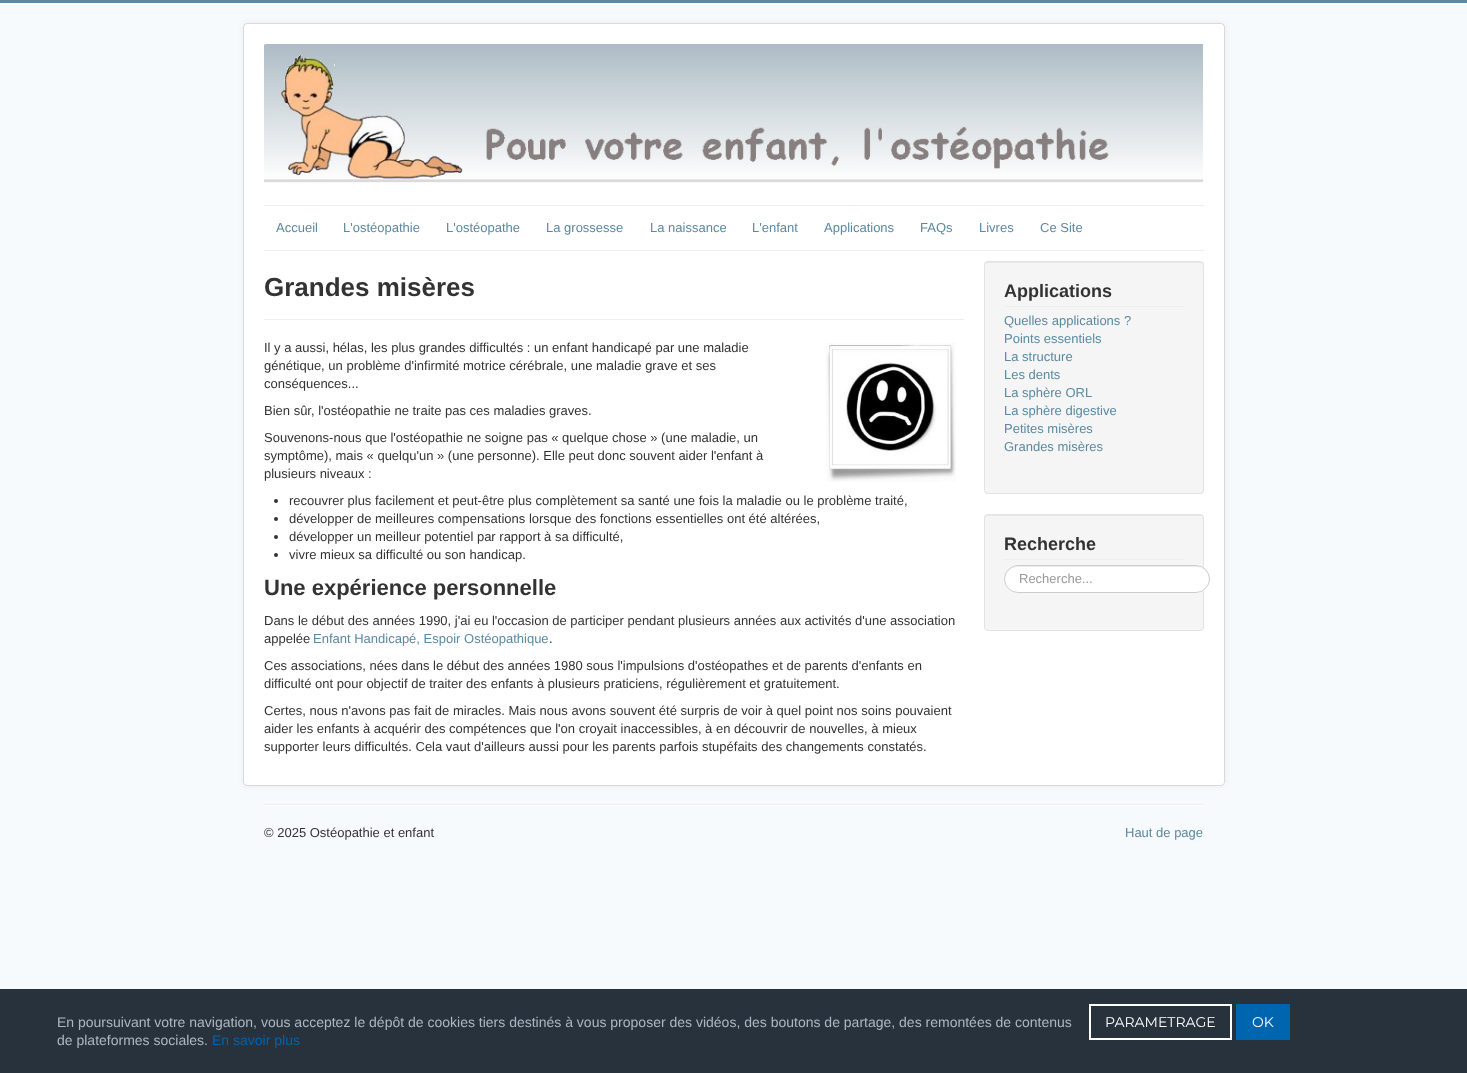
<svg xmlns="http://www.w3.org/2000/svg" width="1467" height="1073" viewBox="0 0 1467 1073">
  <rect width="100%" height="100%" fill="rgb(247,250,252)"/>
  <rect x="0" y="0" width="1467" height="3" fill="rgb(90,137,161)"/>
  <rect x="243" y="23" width="982" height="763" rx="4" fill="rgba(0,0,0,0.05)" filter="blur(3px)"/>
  <rect x="243" y="23" width="982" height="763" rx="4" fill="rgb(255,255,255)"/>
  <rect x="243.5" y="23.5" width="981" height="762" rx="3.5" fill="none" stroke="rgba(0,0,0,0.15)"/>
  <image x="264" y="44" width="939" height="139" href="pic1.png"/>
  <rect x="264" y="205" width="940" height="1" fill="rgb(236,236,236)"/>
  <rect x="264" y="250" width="940" height="1" fill="rgb(236,236,236)"/>
  <g font-family="Liberation Sans" font-size="13" fill="rgb(90,137,161)">
    <text x="276" y="232">Accueil</text>
    <text x="343" y="232">L'ostéopathie</text>
    <text x="446" y="232">L'ostéopathe</text>
    <text x="546" y="232">La grossesse</text>
    <text x="650" y="232">La naissance</text>
    <text x="752" y="232">L'enfant</text>
    <text x="824" y="232">Applications</text>
    <text x="920" y="232">FAQs</text>
    <text x="979" y="232">Livres</text>
    <text x="1040" y="232">Ce Site</text>
  </g>
  <text x="264" y="296" font-family="Liberation Sans" font-size="26" font-weight="bold" fill="rgb(51,51,51)">Grandes misères</text>
  <rect x="264" y="319" width="700" height="1" fill="rgb(238,238,238)"/>
  <g font-family="Liberation Sans" font-size="13" fill="rgb(51,51,51)">
    <text>
      <tspan x="264" y="352">Il y a aussi, hélas, les plus grandes difficultés : un enfant handicapé par une maladie</tspan>
      <tspan x="264" y="370">génétique, un problème d'infirmité motrice cérébrale, une maladie grave et ses</tspan>
      <tspan x="264" y="388">conséquences...</tspan>
    </text>
  </g>
  <image x="826" y="343" width="130" height="139" href="pic2.png"/>
  <g font-family="Liberation Sans" font-size="13" fill="rgb(51,51,51)">
    <text x="264" y="415">Bien sûr, l'ostéopathie ne traite pas ces maladies graves.</text>
    <text>
      <tspan x="264" y="442">Souvenons-nous que l'ostéopathie ne soigne pas « quelque chose » (une maladie, un</tspan>
      <tspan x="264" y="460">symptôme), mais « quelqu'un » (une personne). Elle peut donc souvent aider l'enfant à</tspan>
      <tspan x="264" y="478">plusieurs niveaux :</tspan>
    </text>
  </g>
  <circle cx="276" cy="501" r="2" fill="rgb(51,51,51)"/>
  <text x="289" y="505" font-family="Liberation Sans" font-size="13" fill="rgb(51,51,51)">recouvrer plus facilement et peut-être plus complètement sa santé une fois la maladie ou le problème traité,</text>
  <circle cx="276" cy="519" r="2" fill="rgb(51,51,51)"/>
  <text x="289" y="523" font-family="Liberation Sans" font-size="13" fill="rgb(51,51,51)">développer de meilleures compensations lorsque des fonctions essentielles ont été altérées,</text>
  <circle cx="276" cy="537" r="2" fill="rgb(51,51,51)"/>
  <text x="289" y="541" font-family="Liberation Sans" font-size="13" fill="rgb(51,51,51)">développer un meilleur potentiel par rapport à sa difficulté,</text>
  <circle cx="276" cy="555" r="2" fill="rgb(51,51,51)"/>
  <text x="289" y="559" font-family="Liberation Sans" font-size="13" fill="rgb(51,51,51)">vivre mieux sa difficulté ou son handicap.</text>
  <text x="264" y="595" font-family="Liberation Sans" font-size="22" font-weight="bold" fill="rgb(51,51,51)">Une expérience personnelle</text>
  <g font-family="Liberation Sans" font-size="13" fill="rgb(51,51,51)">
    <text>
      <tspan x="264" y="625">Dans le début des années 1990, j'ai eu l'occasion de participer pendant plusieurs années aux activités d'une association</tspan>
      <tspan x="264" y="643">appelée</tspan>
    </text>
  </g>
  <text x="313" y="643" font-family="Liberation Sans" font-size="13" fill="rgb(90,137,161)">Enfant Handicapé, Espoir Ostéopathique</text>
  <g font-family="Liberation Sans" font-size="13" fill="rgb(51,51,51)">
    <text x="549" y="643">.</text>
    <text>
      <tspan x="264" y="670">Ces associations, nées dans le début des années 1980 sous l'impulsions d'ostéopathes et de parents d'enfants en</tspan>
      <tspan x="264" y="688">difficulté ont pour objectif de traiter des enfants à plusieurs praticiens, régulièrement et gratuitement.</tspan>
    </text>
    <text>
      <tspan x="264" y="715">Certes, nous n'avons pas fait de miracles. Mais nous avons souvent été surpris de voir à quel point nos soins pouvaient</tspan>
      <tspan x="264" y="733">aider les enfants à acquérir des compétences que l'on croyait inaccessibles, à en découvrir de nouvelles, à mieux</tspan>
      <tspan x="264" y="751">supporter leurs difficultés. Cela vaut d'ailleurs aussi pour les parents parfois stupéfaits des changements constatés.</tspan>
    </text>
  </g>
  <rect x="0" y="989" width="1467" height="84" fill="rgb(39,50,61)"/>
  <g font-family="Liberation Sans" font-size="14" fill="rgb(172,184,193)">
    <text>
      <tspan x="57" y="1027">En poursuivant votre navigation, vous acceptez le dépôt de cookies tiers destinés à vous proposer des vidéos, des boutons de partage, des remontées de contenus</tspan>
      <tspan x="57" y="1045">de plateformes sociales.</tspan>
    </text>
  </g>
  <text x="212" y="1045" font-family="Liberation Sans" font-size="14" fill="rgb(0,101,175)">En savoir plus</text>
  <rect x="1090" y="1005" width="141" height="34" fill="none" stroke="rgb(255,255,255)" stroke-width="2"/>
  <text x="1105" y="1027" font-family="Montserrat" font-size="14" fill="rgb(255,255,255)">PARAMETRAGE</text>
  <rect x="1236" y="1004" width="54" height="36" fill="rgb(0,101,175)"/>
  <text x="1252" y="1027" font-family="Montserrat" font-size="14" fill="rgb(255,255,255)">OK</text>
  <rect x="984" y="261" width="220" height="233" rx="4" fill="rgb(245,245,245)"/>
  <path d="M988 263H1200C1202 263 1203 264 1203 266V265C1203 263 1202 262 1200 262H988C986 262 985 263 985 265V266C985 264 986 263 988 263Z" fill="rgb(233,233,233)"/>
  <rect x="984.5" y="261.5" width="219" height="232" rx="3.5" fill="none" stroke="rgb(227,227,227)"/>
  <rect x="1004" y="306" width="180" height="1" fill="rgb(238,238,238)"/>
  <text x="1004" y="297" font-family="Liberation Sans" font-size="18" font-weight="bold" fill="rgb(51,51,51)">Applications</text>
  <g font-family="Liberation Sans" font-size="13" fill="rgb(90,137,161)">
    <text>
      <tspan x="1004" y="325">Quelles applications ?</tspan>
      <tspan x="1004" y="343">Points essentiels</tspan>
      <tspan x="1004" y="361">La structure</tspan>
      <tspan x="1004" y="379">Les dents</tspan>
      <tspan x="1004" y="397">La sphère ORL</tspan>
      <tspan x="1004" y="415">La sphère digestive</tspan>
      <tspan x="1004" y="433">Petites misères</tspan>
      <tspan x="1004" y="451">Grandes misères</tspan>
    </text>
  </g>
  <rect x="984" y="514" width="220" height="117" rx="4" fill="rgb(245,245,245)"/>
  <path d="M988 516H1200C1202 516 1203 517 1203 519V518C1203 516 1202 515 1200 515H988C986 515 985 516 985 518V519C985 517 986 516 988 516Z" fill="rgb(233,233,233)"/>
  <rect x="984.5" y="514.5" width="219" height="116" rx="3.5" fill="none" stroke="rgb(227,227,227)"/>
  <rect x="1004" y="559" width="180" height="1" fill="rgb(238,238,238)"/>
  <text x="1004" y="550" font-family="Liberation Sans" font-size="18" font-weight="bold" fill="rgb(51,51,51)">Recherche</text>
  <rect x="1004" y="565" width="206" height="28" rx="14" fill="rgb(255,255,255)"/>
  <path d="M1018 567H1196C1203 567 1209 573 1209 580C1210 559 1174 566 1166 566H1048C1040 566 1004 559 1005 580C1005 573 1011 567 1018 567Z" fill="rgb(236,236,236)"/>
  <rect x="1004.5" y="565.5" width="205" height="27" rx="13.5" fill="none" stroke="rgb(204,204,204)"/>
  <text x="1019" y="583" font-family="Liberation Sans" font-size="13" fill="rgb(153,153,153)">Recherche...</text>
  <rect x="264" y="804" width="940" height="1" fill="rgb(238,238,238)"/>
  <rect x="264" y="805" width="940" height="1" fill="rgb(255,255,255)"/>
  <text x="264" y="837" font-family="Liberation Sans" font-size="13" fill="rgb(51,51,51)">© 2025 Ostéopathie et enfant</text>
  <text x="1125" y="837" font-family="Liberation Sans" font-size="13" fill="rgb(90,137,161)">Haut de page</text>
</svg>
